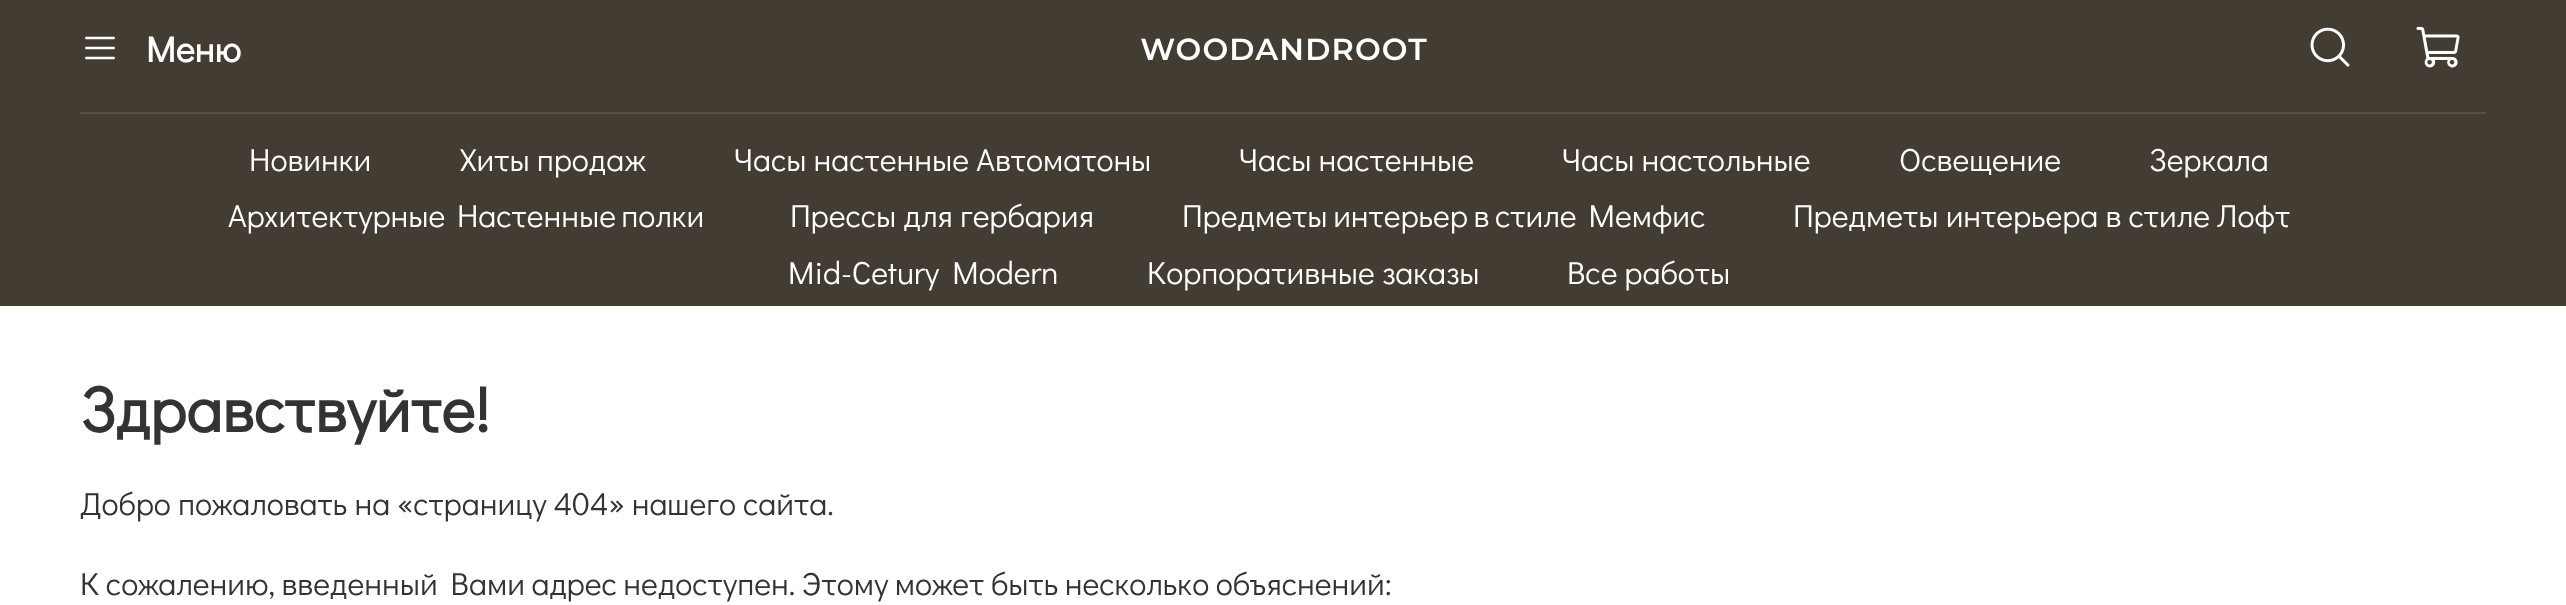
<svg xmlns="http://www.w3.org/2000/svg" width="2566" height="605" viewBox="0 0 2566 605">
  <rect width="100%" height="100%" fill="rgb(255,255,255)"/>
  <rect x="0" y="0" width="2566" height="306" fill="rgb(66,60,51)"/>
  <image x="85" y="36" width="30" height="24" href="pic1.png"/>
  <text x="146" y="62" font-family="Didact Gothic" font-size="36" font-weight="bold" fill="rgb(255,255,255)">Меню</text>
  <image x="1141" y="38" width="286" height="23" href="pic2.png"/>
  <image x="2310" y="27" width="40" height="40" href="pic3.png"/>
  <image x="2416" y="26" width="44" height="42" href="pic4.png"/>
  <rect x="80" y="112" width="2406" height="2" fill="rgb(88,80,68)"/>
  <g font-family="Didact Gothic" font-size="32" fill="rgb(255,255,255)">
    <text x="249" y="171">Новинки</text>
    <text x="460" y="171">Хиты продаж</text>
    <text x="734" y="171">Часы настенные Автоматоны</text>
    <text x="1239" y="171">Часы настенные</text>
    <text x="1562" y="171">Часы настольные</text>
    <text x="1899" y="171">Освещение</text>
    <text x="2149" y="171">Зеркала</text>
    <text x="228" y="227" word-spacing="-2">Архитектурные Настенные полки</text>
    <text x="790" y="227">Прессы для гербария</text>
    <text x="1182" y="227" word-spacing="-1.5">Предметы интерьер в стиле Мемфис</text>
    <text x="1793" y="227">Предметы интерьера в стиле Лофт</text>
    <text x="788" y="284" word-spacing="6">Mid-Cetury Modern</text>
    <text x="1147" y="284">Корпоративные заказы</text>
    <text x="1567" y="284">Все работы</text>
  </g>
  <text x="80" y="432" font-family="Didact Gothic" font-size="64" font-weight="bold" fill="rgb(51,51,51)">Здравствуйте!</text>
  <g font-family="Didact Gothic" font-size="32" fill="rgb(51,51,51)">
    <text x="80" y="515">Добро пожаловать на «страницу 404» нашего сайта.</text>
    <text x="80" y="595" word-spacing="-0.6">К сожалению, введенный Вами адрес недоступен. Этому может быть несколько объяснений:</text>
  </g>
</svg>
